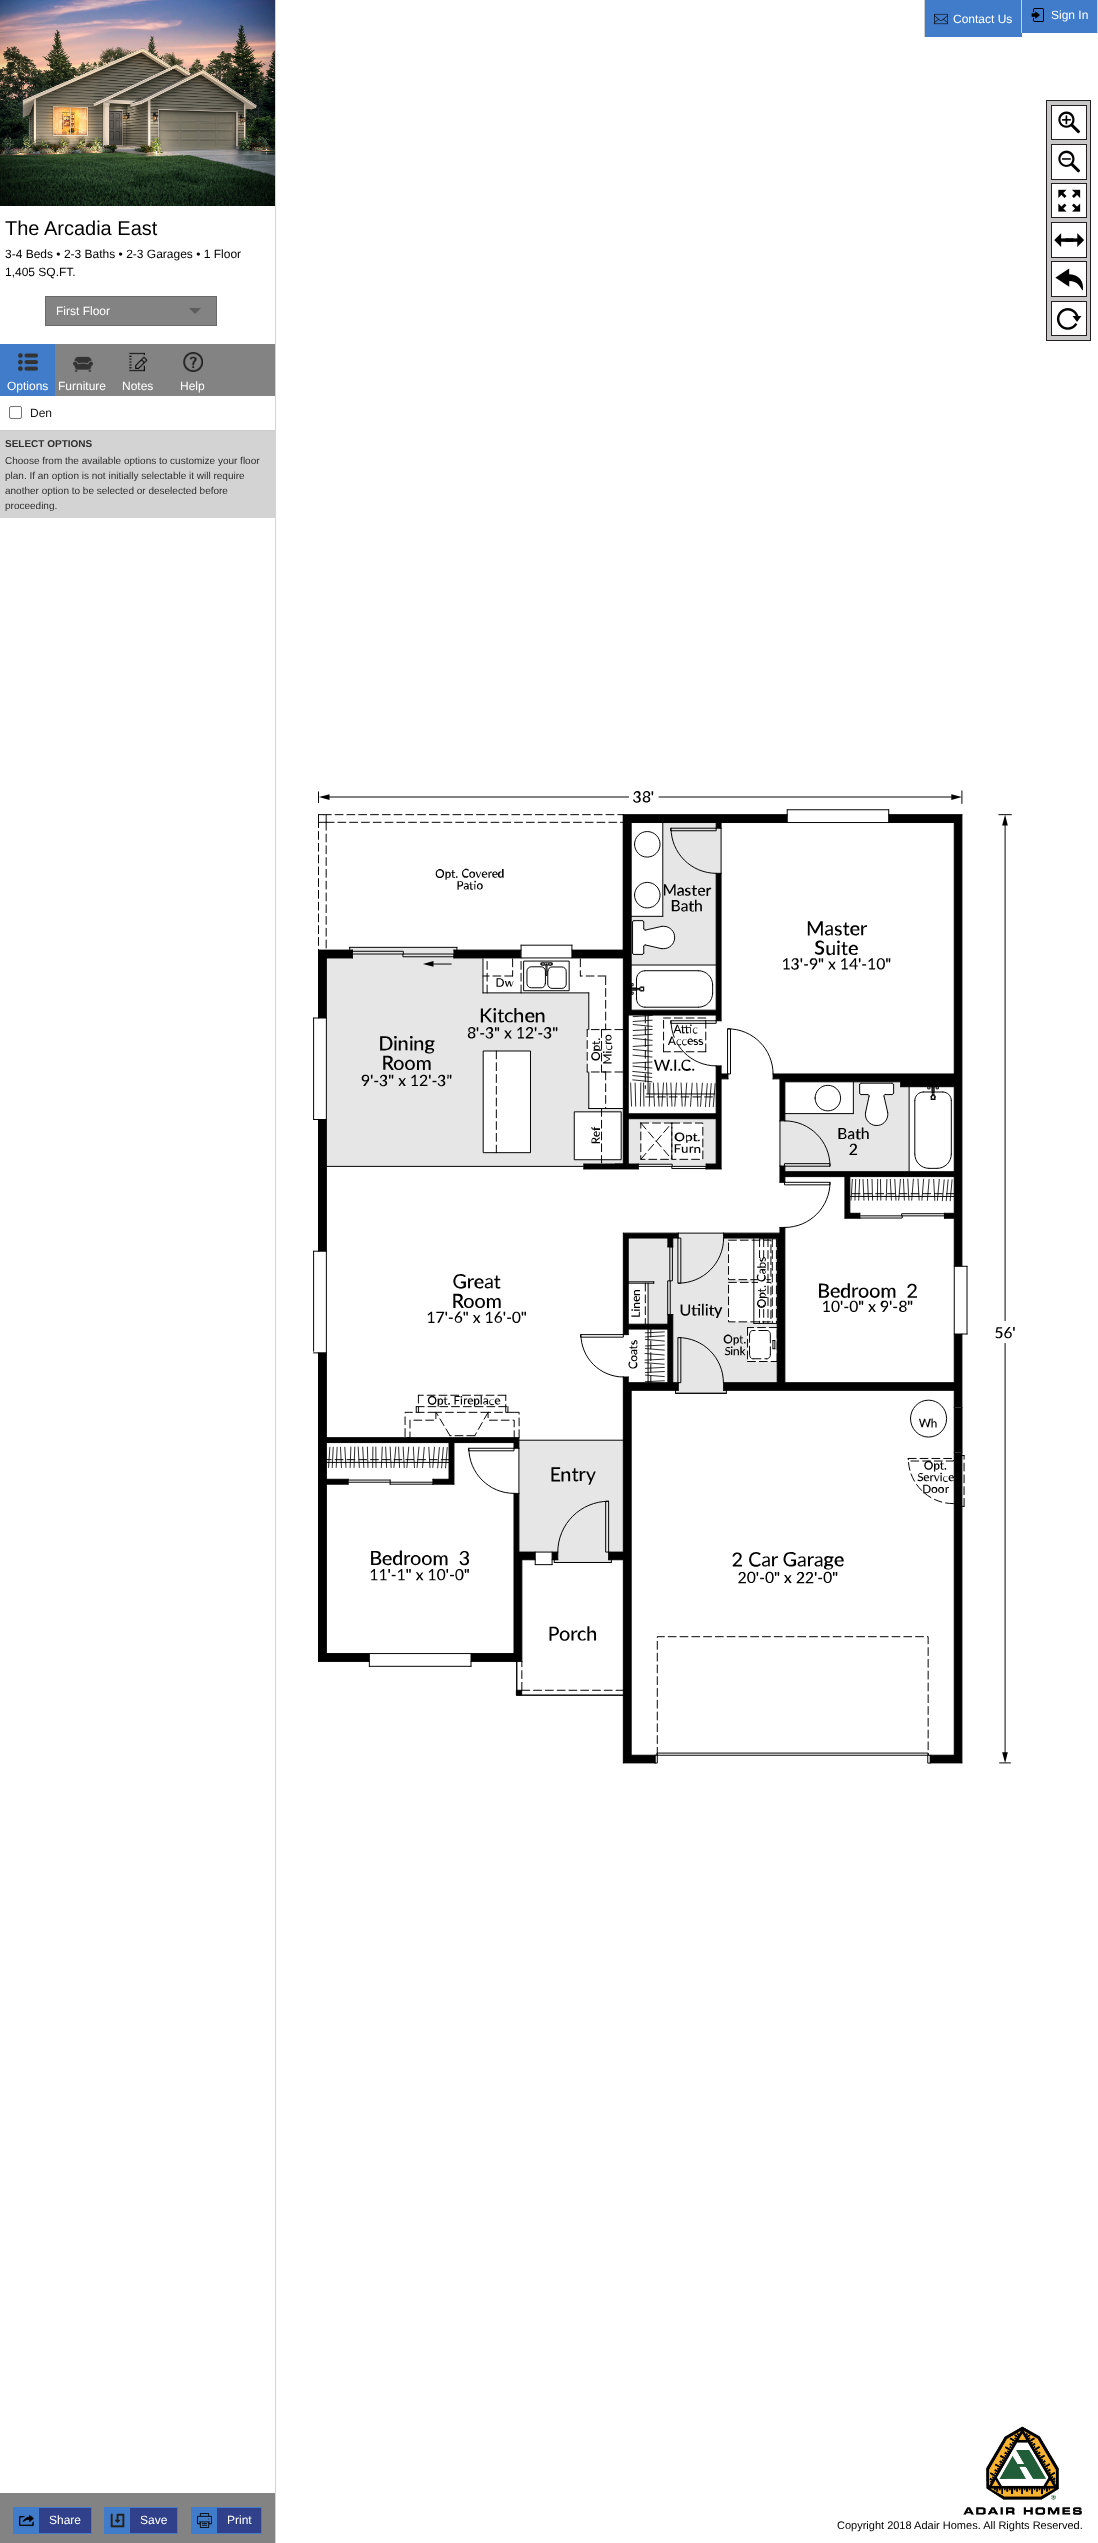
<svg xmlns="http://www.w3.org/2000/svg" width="1098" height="2543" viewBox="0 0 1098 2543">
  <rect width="100%" height="100%" fill="rgb(255,255,255)"/>
  <rect x="925" y="0" width="97" height="37" fill="rgb(64,124,202)"/>
  <rect x="924" y="0" width="1" height="37" fill="rgb(207,207,207)"/>
  <image x="934" y="13" width="14" height="12" href="pic1.png"/>
  <text x="953" y="23" font-family="Liberation Sans" font-size="12" fill="rgb(255,255,255)">Contact Us</text>
  <rect x="1022" y="0" width="75" height="33" fill="rgb(64,124,202)"/>
  <rect x="1097" y="0" width="1" height="33" fill="rgb(207,207,207)"/>
  <rect x="1021" y="0" width="1" height="33" fill="rgb(207,207,207)"/>
  <image x="1031" y="8" width="13" height="14" href="pic2.png"/>
  <text x="1051" y="19" font-family="Liberation Sans" font-size="12" fill="rgb(255,255,255)">Sign In</text>
  <rect x="275" y="0" width="1" height="2543" fill="rgb(211,211,211)"/>
  <image x="0" y="0" width="275" height="206" href="pic3.png"/>
  <text x="5" y="235" font-family="Liberation Sans" font-size="20" fill="rgb(0,0,0)">The Arcadia East</text>
  <g font-family="Liberation Sans" font-size="12" fill="rgb(0,0,0)">
    <text>
      <tspan x="5" y="258">3-4 Beds • 2-3 Baths • 2-3 Garages • 1 Floor</tspan>
      <tspan x="5" y="276">1,405 SQ.FT.</tspan>
    </text>
  </g>
  <rect x="45.5" y="296.5" width="171" height="29" fill="rgb(131,131,131)" stroke="rgb(105,105,105)"/>
  <text x="56" y="315" font-family="Liberation Sans" font-size="12" fill="rgb(255,255,255)">First Floor</text>
  <path d="M189 308H201L195 314Z" fill="rgb(92,92,92)"/>
  <rect x="55" y="344" width="220" height="52" fill="rgb(131,131,131)"/>
  <rect x="0" y="344" width="55" height="52" fill="rgb(64,124,202)"/>
  <image x="18" y="352" width="20" height="20" href="pic4.png"/>
  <text x="7" y="390" font-family="Liberation Sans" font-size="12" fill="rgb(255,255,255)">Options</text>
  <image x="73" y="356" width="20" height="16" href="pic5.png"/>
  <text x="58" y="390" font-family="Liberation Sans" font-size="12" fill="rgb(255,255,255)">Furniture</text>
  <image x="128" y="352" width="20" height="20" href="pic6.png"/>
  <text x="122" y="390" font-family="Liberation Sans" font-size="12" fill="rgb(255,255,255)">Notes</text>
  <image x="183" y="352" width="20" height="20" href="pic7.png"/>
  <text x="180" y="390" font-family="Liberation Sans" font-size="12" fill="rgb(255,255,255)">Help</text>
  <rect x="0" y="430" width="275" height="1" fill="rgb(204,204,204)"/>
  <rect x="9.5" y="406.5" width="12" height="12" rx="1.5" fill="none" stroke="rgb(118,118,118)"/>
  <text x="30" y="417" font-family="Liberation Sans" font-size="12" fill="rgb(25,24,25)">Den</text>
  <rect x="0" y="431" width="275" height="87" fill="rgb(211,211,211)"/>
  <text x="5" y="447" font-family="Liberation Sans" font-size="10" font-weight="bold" fill="rgb(47,47,47)">SELECT OPTIONS</text>
  <g font-family="Liberation Sans" font-size="10" fill="rgb(47,47,47)">
    <text>
      <tspan x="5" y="464">Choose from the available options to customize your floor</tspan>
      <tspan x="5" y="479">plan. If an option is not initially selectable it will require</tspan>
      <tspan x="5" y="494">another option to be selected or deselected before</tspan>
      <tspan x="5" y="509">proceeding.</tspan>
    </text>
  </g>
  <rect x="0" y="2493" width="275" height="50" fill="rgb(131,131,131)"/>
  <rect x="39" y="2508" width="52" height="25" fill="rgb(48,64,138)"/>
  <rect x="13.5" y="2507.5" width="78" height="26" fill="none" stroke="rgb(64,124,202)"/>
  <rect x="14" y="2508" width="25" height="25" fill="rgb(64,124,202)"/>
  <image x="19" y="2514" width="15" height="14" href="pic8.png"/>
  <text x="49" y="2524" font-family="Liberation Sans" font-size="12" fill="rgb(255,255,255)">Share</text>
  <rect x="130" y="2508" width="47" height="25" fill="rgb(48,64,138)"/>
  <rect x="104.5" y="2507.5" width="73" height="26" fill="none" stroke="rgb(64,124,202)"/>
  <rect x="105" y="2508" width="25" height="25" fill="rgb(64,124,202)"/>
  <image x="110" y="2513" width="15" height="15" href="pic9.png"/>
  <text x="140" y="2524" font-family="Liberation Sans" font-size="12" fill="rgb(255,255,255)">Save</text>
  <rect x="217" y="2508" width="44" height="25" fill="rgb(48,64,138)"/>
  <rect x="191.5" y="2507.5" width="70" height="26" fill="none" stroke="rgb(64,124,202)"/>
  <rect x="192" y="2508" width="25" height="25" fill="rgb(64,124,202)"/>
  <image x="197" y="2513" width="15" height="15" href="pic10.png"/>
  <text x="227" y="2524" font-family="Liberation Sans" font-size="12" fill="rgb(255,255,255)">Print</text>
  <image x="313" y="790" width="702" height="974" href="pic11.png"/>
  <image x="1046" y="100" width="45" height="241" href="pic12.png"/>
  <image x="963" y="2426" width="119" height="89" href="pic13.png"/>
  <text x="837" y="2529" font-family="Liberation Sans" font-size="11" fill="rgb(0,0,0)">Copyright 2018 Adair Homes. All Rights Reserved.</text>
</svg>
